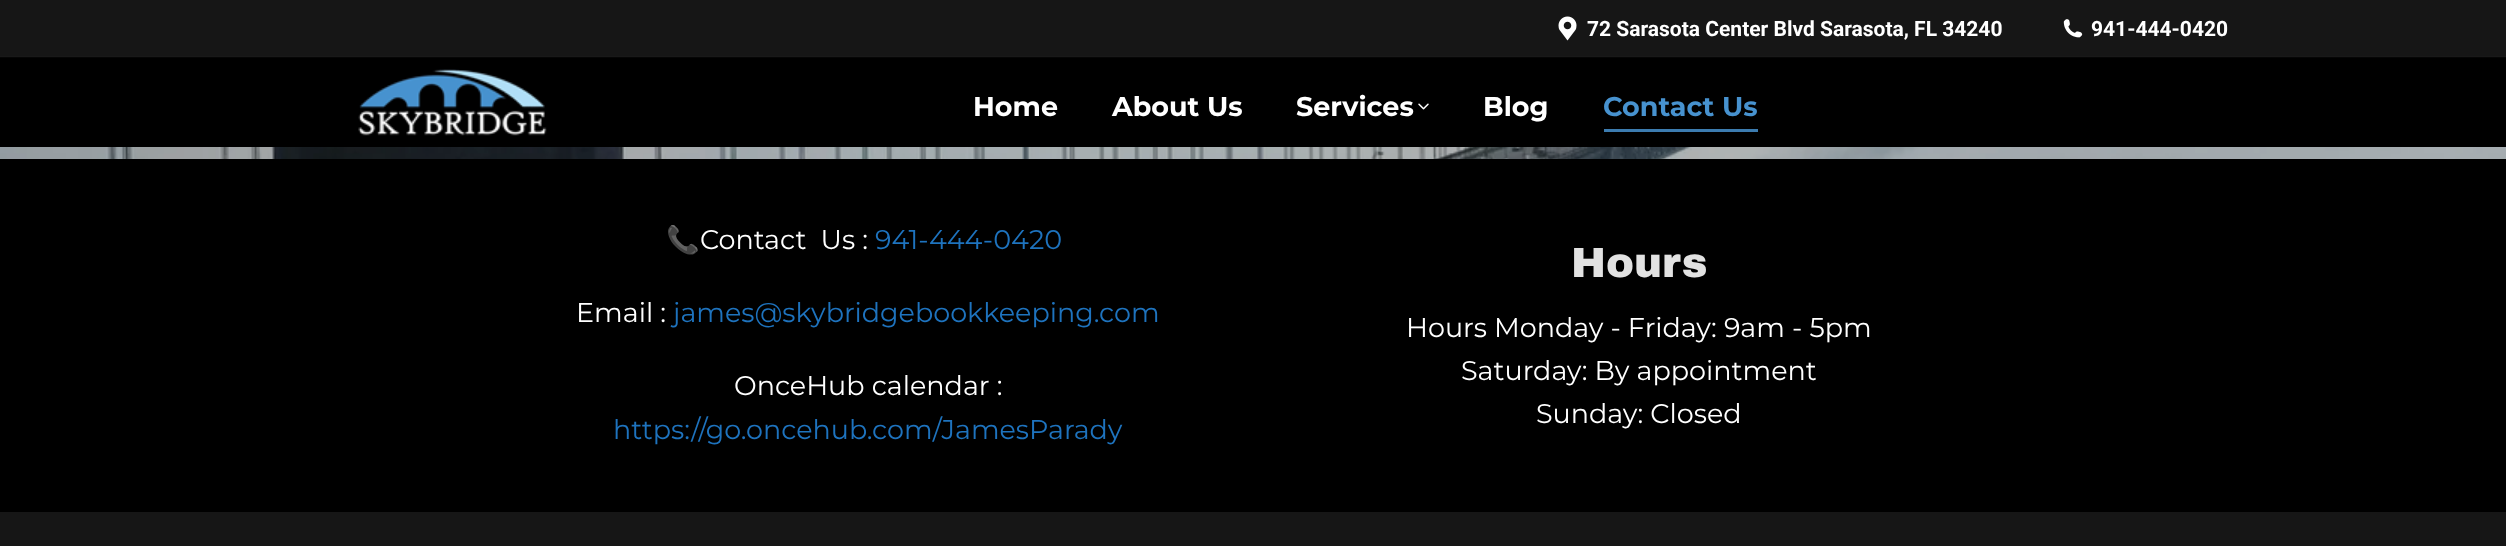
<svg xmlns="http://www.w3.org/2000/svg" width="2506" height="546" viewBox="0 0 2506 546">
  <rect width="100%" height="100%" fill="rgb(22,22,22)"/>
  <rect x="0" y="57" width="2506" height="90" fill="rgb(0,0,0)"/>
  <image x="1558" y="16" width="19" height="25" href="pic1.png"/>
  <text x="1587" y="36" font-family="Roboto" font-size="21" font-weight="bold" fill="rgb(255,255,255)">72 Sarasota Center Blvd Sarasota, FL 34240</text>
  <image x="2063" y="19" width="20" height="19" href="pic2.png"/>
  <text x="2091" y="36" font-family="Roboto" font-size="21" font-weight="bold" fill="rgb(255,255,255)">941-444-0420</text>
  <rect x="0" y="56" width="2506" height="2" fill="rgba(51,51,51,0.11)"/>
  <image x="358" y="69" width="189" height="67" href="pic3.png"/>
  <g font-family="Montserrat" font-size="27" font-weight="bold" fill="rgb(255,255,255)">
    <text x="973" y="116">Home</text>
    <text x="1112" y="116">About Us</text>
    <text x="1296" y="116">Services</text>
  </g>
  <image x="1418" y="103" width="11" height="7" href="pic4.png"/>
  <text x="1483" y="116" font-family="Montserrat" font-size="27" font-weight="bold" fill="rgb(255,255,255)">Blog</text>
  <text x="1603" y="116" font-family="Montserrat" font-size="27" font-weight="bold" fill="rgb(71,146,207)">Contact Us</text>
  <rect x="1604" y="129" width="154" height="3" fill="rgb(60,124,176)"/>
  <image x="0" y="147" width="2506" height="12" href="pic5.png"/>
  <rect x="0" y="159" width="2506" height="353" fill="rgb(0,0,0)"/>
  <text x="666" y="249" font-family="Noto Color Emoji" font-size="27" fill="rgb(255,255,255)">📞</text>
  <text x="700" y="249" font-family="Montserrat" font-size="27" fill="rgb(255,255,255)" xml:space="preserve">Contact  Us :</text>
  <text x="875" y="249" font-family="Montserrat" font-size="27" fill="rgb(30,115,190)">941-444-0420</text>
  <text x="576" y="322" font-family="Montserrat" font-size="27" fill="rgb(255,255,255)">Email :</text>
  <text x="673" y="322" font-family="Montserrat" font-size="27" fill="rgb(30,115,190)">james@skybridgebookkeeping.com</text>
  <text x="734" y="395" font-family="Montserrat" font-size="27" fill="rgb(255,255,255)">OnceHub calendar :</text>
  <text x="613" y="439" font-family="Montserrat" font-size="27" fill="rgb(30,115,190)">https://go.oncehub.com/JamesParady</text>
  <text x="1571" y="277" font-family="Archivo Black" font-size="42" font-weight="900" fill="rgb(226,226,226)">Hours</text>
  <g font-family="Montserrat" font-size="27" fill="rgb(255,255,255)">
    <text x="1406" y="337">Hours Monday - Friday: 9am - 5pm</text>
    <text x="1461" y="380">Saturday: By appointment</text>
    <text x="1536" y="423">Sunday: Closed</text>
  </g>
</svg>
